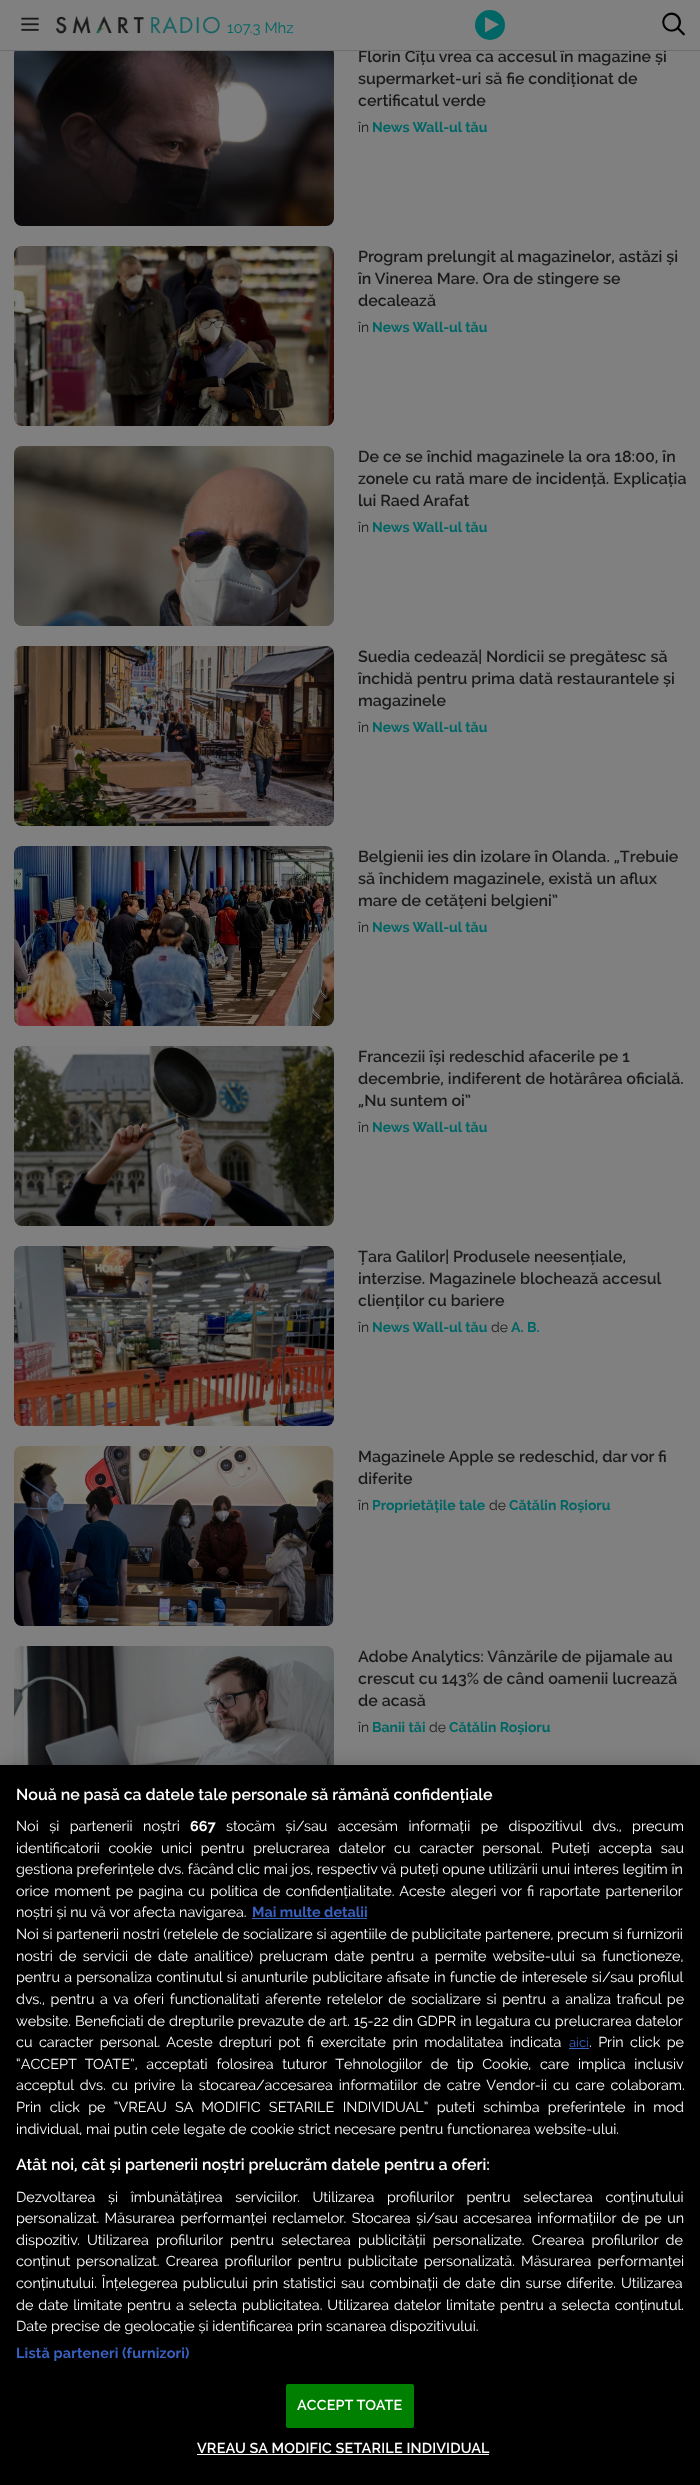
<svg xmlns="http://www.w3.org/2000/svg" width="700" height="2485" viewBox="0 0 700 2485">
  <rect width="100%" height="100%" fill="rgb(128,128,128)"/>
  <text x="358" y="62" font-family="Raleway" font-size="16" font-weight="600" fill="rgb(26,26,26)">Florin Cîțu vrea ca accesul în magazine și</text>
  <rect x="0" y="50" width="700" height="1" fill="rgb(109,109,109)"/>
  <image x="21" y="17" width="18" height="14" href="pic1.png"/>
  <image x="56" y="15" width="164" height="19" href="pic2.png"/>
  <text x="227" y="33" font-family="Raleway" font-size="15" fill="rgb(0,101,101)">107.3 Mhz</text>
  <circle cx="490" cy="25" r="15" fill="rgb(0,101,101)"/>
  <path d="M499 24.5L485 17V32.5Z" fill="rgb(128,128,128)"/>
  <image x="662" y="12" width="23" height="24" href="pic3.png"/>
  <image x="14" y="51" width="320" height="175" href="pic4.png"/>
  <g font-family="Raleway" font-size="16" font-weight="600" fill="rgb(26,26,26)">
    <text>
      <tspan x="358" y="84">supermarket-uri să fie condiționat de</tspan>
      <tspan x="358" y="106">certificatul verde</tspan>
    </text>
  </g>
  <text x="358" y="132" font-family="Raleway" font-size="14" fill="rgb(26,26,26)">în</text>
  <text x="372" y="132" font-family="Raleway" font-size="14" font-weight="bold" fill="rgb(0,101,101)">News Wall-ul tău</text>
  <image x="14" y="246" width="320" height="180" href="pic5.png"/>
  <g font-family="Raleway" font-size="16" font-weight="600" fill="rgb(26,26,26)">
    <text>
      <tspan x="358" y="262">Program prelungit al magazinelor, astăzi și</tspan>
      <tspan x="358" y="284">în Vinerea Mare. Ora de stingere se</tspan>
      <tspan x="358" y="306">decalează</tspan>
    </text>
  </g>
  <text x="358" y="332" font-family="Raleway" font-size="14" fill="rgb(26,26,26)">în</text>
  <text x="372" y="332" font-family="Raleway" font-size="14" font-weight="bold" fill="rgb(0,101,101)">News Wall-ul tău</text>
  <image x="14" y="446" width="320" height="180" href="pic6.png"/>
  <g font-family="Raleway" font-size="16" font-weight="600" fill="rgb(26,26,26)">
    <text>
      <tspan x="358" y="462">De ce se închid magazinele la ora 18:00, în</tspan>
      <tspan x="358" y="484">zonele cu rată mare de incidență. Explicația</tspan>
      <tspan x="358" y="506">lui Raed Arafat</tspan>
    </text>
  </g>
  <text x="358" y="532" font-family="Raleway" font-size="14" fill="rgb(26,26,26)">în</text>
  <text x="372" y="532" font-family="Raleway" font-size="14" font-weight="bold" fill="rgb(0,101,101)">News Wall-ul tău</text>
  <image x="14" y="646" width="320" height="180" href="pic7.png"/>
  <g font-family="Raleway" font-size="16" font-weight="600" fill="rgb(26,26,26)">
    <text>
      <tspan x="358" y="662">Suedia cedează| Nordicii se pregătesc să</tspan>
      <tspan x="358" y="684">închidă pentru prima dată restaurantele și</tspan>
      <tspan x="358" y="706">magazinele</tspan>
    </text>
  </g>
  <text x="358" y="732" font-family="Raleway" font-size="14" fill="rgb(26,26,26)">în</text>
  <text x="372" y="732" font-family="Raleway" font-size="14" font-weight="bold" fill="rgb(0,101,101)">News Wall-ul tău</text>
  <image x="14" y="846" width="320" height="180" href="pic8.png"/>
  <g font-family="Raleway" font-size="16" font-weight="600" fill="rgb(26,26,26)">
    <text>
      <tspan x="358" y="862">Belgienii ies din izolare în Olanda. „Trebuie</tspan>
      <tspan x="358" y="884">să închidem magazinele, există un aflux</tspan>
      <tspan x="358" y="906">mare de cetățeni belgieni”</tspan>
    </text>
  </g>
  <text x="358" y="932" font-family="Raleway" font-size="14" fill="rgb(26,26,26)">în</text>
  <text x="372" y="932" font-family="Raleway" font-size="14" font-weight="bold" fill="rgb(0,101,101)">News Wall-ul tău</text>
  <image x="14" y="1046" width="320" height="180" href="pic9.png"/>
  <g font-family="Raleway" font-size="16" font-weight="600" fill="rgb(26,26,26)">
    <text>
      <tspan x="358" y="1062">Francezii își redeschid afacerile pe 1</tspan>
      <tspan x="358" y="1084">decembrie, indiferent de hotărârea oficială.</tspan>
      <tspan x="358" y="1106">„Nu suntem oi”</tspan>
    </text>
  </g>
  <text x="358" y="1132" font-family="Raleway" font-size="14" fill="rgb(26,26,26)">în</text>
  <text x="372" y="1132" font-family="Raleway" font-size="14" font-weight="bold" fill="rgb(0,101,101)">News Wall-ul tău</text>
  <image x="14" y="1246" width="320" height="180" href="pic10.png"/>
  <g font-family="Raleway" font-size="16" font-weight="600" fill="rgb(26,26,26)">
    <text>
      <tspan x="358" y="1262">Țara Galilor| Produsele neesențiale,</tspan>
      <tspan x="358" y="1284">interzise. Magazinele blochează accesul</tspan>
      <tspan x="358" y="1306">clienților cu bariere</tspan>
    </text>
  </g>
  <text x="358" y="1332" font-family="Raleway" font-size="14" fill="rgb(26,26,26)">în</text>
  <text x="372" y="1332" font-family="Raleway" font-size="14" font-weight="bold" fill="rgb(0,101,101)">News Wall-ul tău</text>
  <text x="491" y="1332" font-family="Raleway" font-size="14" fill="rgb(26,26,26)">de</text>
  <text x="511" y="1332" font-family="Raleway" font-size="14" font-weight="bold" fill="rgb(0,101,101)">A. B.</text>
  <image x="14" y="1446" width="320" height="180" href="pic11.png"/>
  <g font-family="Raleway" font-size="16" font-weight="600" fill="rgb(26,26,26)">
    <text>
      <tspan x="358" y="1462">Magazinele Apple se redeschid, dar vor fi</tspan>
      <tspan x="358" y="1484">diferite</tspan>
    </text>
  </g>
  <text x="358" y="1510" font-family="Raleway" font-size="14" fill="rgb(26,26,26)">în</text>
  <text x="372" y="1510" font-family="Raleway" font-size="14" font-weight="bold" fill="rgb(0,101,101)">Proprietățile tale</text>
  <text x="489" y="1510" font-family="Raleway" font-size="14" fill="rgb(26,26,26)">de</text>
  <text x="509" y="1510" font-family="Raleway" font-size="14" font-weight="bold" fill="rgb(0,101,101)">Cătălin Roșioru</text>
  <image x="14" y="1646" width="320" height="119" href="pic12.png"/>
  <g font-family="Raleway" font-size="16" font-weight="600" fill="rgb(26,26,26)">
    <text>
      <tspan x="358" y="1662">Adobe Analytics: Vânzările de pijamale au</tspan>
      <tspan x="358" y="1684">crescut cu 143% de când oamenii lucrează</tspan>
      <tspan x="358" y="1706">de acasă</tspan>
    </text>
  </g>
  <text x="358" y="1732" font-family="Raleway" font-size="14" fill="rgb(26,26,26)">în</text>
  <text x="372" y="1732" font-family="Raleway" font-size="14" font-weight="bold" fill="rgb(0,101,101)">Banii tăi</text>
  <text x="429" y="1732" font-family="Raleway" font-size="14" fill="rgb(26,26,26)">de</text>
  <text x="449" y="1732" font-family="Raleway" font-size="14" font-weight="bold" fill="rgb(0,101,101)">Cătălin Roșioru</text>
  <rect x="0" y="1765" width="700" height="720" fill="rgba(0,0,0,0.2)" filter="blur(9px)"/>
  <rect x="0" y="1765" width="700" height="720" fill="rgb(0,0,0)"/>
  <text x="16" y="1800" font-family="Raleway" font-size="16" font-weight="600" fill="rgb(255,255,255)">Nouă ne pasă ca datele tale personale să rămână confidențiale</text>
  <text x="16" y="1831" word-spacing="6.75" font-family="Raleway" font-size="14.4" fill="rgb(255,255,255)">Noi și partenerii noștri</text>
  <text x="190" y="1831" font-family="Raleway" font-size="14.4" font-weight="bold" fill="rgb(255,255,255)">667</text>
  <g font-family="Raleway" font-size="14.4" fill="rgb(255,255,255)">
    <text x="226" y="1831" word-spacing="6.75">stocăm și/sau accesăm informații pe dispozitivul dvs., precum</text>
    <text>
      <tspan x="16" y="1853" word-spacing="4.9">identificatorii cookie unici pentru prelucrarea datelor cu caracter personal. Puteți accepta sau</tspan>
      <tspan x="16" y="1874">gestiona preferințele dvs. făcând clic mai jos, respectiv vă puteți opune utilizării unui interes legitim în</tspan>
      <tspan x="16" y="1896" word-spacing="1.5">orice moment pe pagina cu politica de confidențialitate. Aceste alegeri vor fi raportate partenerilor</tspan>
      <tspan x="16" y="1917">noștri și nu vă vor afecta navigarea.</tspan>
    </text>
  </g>
  <text x="252" y="1917" font-family="Raleway" font-size="14.4" font-weight="bold" fill="rgb(56,96,190)">Mai multe detalii</text>
  <rect x="252" y="1918" width="115" height="1" fill="rgb(56,96,190)"/>
  <g font-family="Raleway" font-size="14.4" fill="rgb(255,255,255)">
    <text>
      <tspan x="16" y="1939">Noi si partenerii nostri (retelele de socializare si agentiile de publicitate partenere, precum si furnizorii</tspan>
      <tspan x="16" y="1961" word-spacing="2.6">nostri de servicii de date analitice) prelucram date pentru a permite website-ului sa functioneze,</tspan>
      <tspan x="16" y="1982" word-spacing="0.6">pentru a personaliza continutul si anunturile publicitare afisate in functie de interesele si/sau profilul</tspan>
      <tspan x="16" y="2004" word-spacing="1.9">dvs., pentru a va oferi functionalitati aferente retelelor de socializare si pentru a analiza traficul pe</tspan>
      <tspan x="16" y="2026" word-spacing="0.25">website. Beneficiati de drepturile prevazute de art. 15-22 din GDPR in legatura cu prelucrarea datelor</tspan>
      <tspan x="16" y="2047" word-spacing="2.75">cu caracter personal. Aceste drepturi pot fi exercitate prin modalitatea indicata</tspan>
    </text>
  </g>
  <text x="569" y="2047" font-family="Raleway" font-size="13" fill="rgb(56,96,190)">aici</text>
  <rect x="569" y="2048" width="20" height="1" fill="rgb(56,96,190)"/>
  <g font-family="Raleway" font-size="14.4" fill="rgb(255,255,255)">
    <text x="589" y="2047" word-spacing="2.75">. Prin click pe</text>
    <text>
      <tspan x="16" y="2069" word-spacing="5">“ACCEPT TOATE”, acceptati folosirea tuturor Tehnologiilor de tip Cookie, care implica inclusiv</tspan>
      <tspan x="16" y="2090" word-spacing="2.25">acceptul dvs. cu privire la stocarea/accesarea informatiilor de catre Vendor-ii cu care colaboram.</tspan>
      <tspan x="16" y="2112" word-spacing="4.6">Prin click pe “VREAU SA MODIFIC SETARILE INDIVIDUAL” puteti schimba preferintele in mod</tspan>
      <tspan x="16" y="2134">individual, mai putin cele legate de cookie strict necesare pentru functionarea website-ului.</tspan>
    </text>
  </g>
  <text x="16" y="2170" font-family="Raleway" font-size="16" font-weight="600" fill="rgb(255,255,255)">Atât noi, cât și partenerii noștri prelucrăm datele pentru a oferi:</text>
  <g font-family="Raleway" font-size="14.4" fill="rgb(255,255,255)">
    <text>
      <tspan x="16" y="2202" word-spacing="9">Dezvoltarea și îmbunătățirea serviciilor. Utilizarea profilurilor pentru selectarea conținutului</tspan>
      <tspan x="16" y="2223" word-spacing="1.75">personalizat. Măsurarea performanței reclamelor. Stocarea și/sau accesarea informațiilor de pe un</tspan>
      <tspan x="16" y="2245" word-spacing="3.5">dispozitiv. Utilizarea profilurilor pentru selectarea publicității personalizate. Crearea profilurilor de</tspan>
      <tspan x="16" y="2266" word-spacing="2.5">conținut personalizat. Crearea profilurilor pentru publicitate personalizată. Măsurarea performanței</tspan>
      <tspan x="16" y="2288" word-spacing="1.25">conținutului. Înțelegerea publicului prin statistici sau combinații de date din surse diferite. Utilizarea</tspan>
      <tspan x="16" y="2310" word-spacing="1.25">de date limitate pentru a selecta publicitatea. Utilizarea datelor limitate pentru a selecta conținutul.</tspan>
      <tspan x="16" y="2331">Date precise de geolocație și identificarea prin scanarea dispozitivului.</tspan>
    </text>
  </g>
  <text x="16" y="2358" font-family="Raleway" font-size="14.4" font-weight="bold" letter-spacing="0.15" fill="rgb(56,96,190)">Listă parteneri (furnizori)</text>
  <rect x="286.5" y="2384.5" width="127" height="43" rx="1.5" fill="rgb(0,128,0)" stroke="rgb(0,128,0)"/>
  <g font-family="Raleway" font-size="14.4" font-weight="600" letter-spacing="0.15" fill="rgb(255,255,255)">
    <text x="297" y="2410">ACCEPT TOATE</text>
    <text x="197" y="2453">VREAU SA MODIFIC SETARILE INDIVIDUAL</text>
  </g>
  <rect x="197" y="2454" width="292" height="1" fill="rgb(255,255,255)"/>
</svg>
